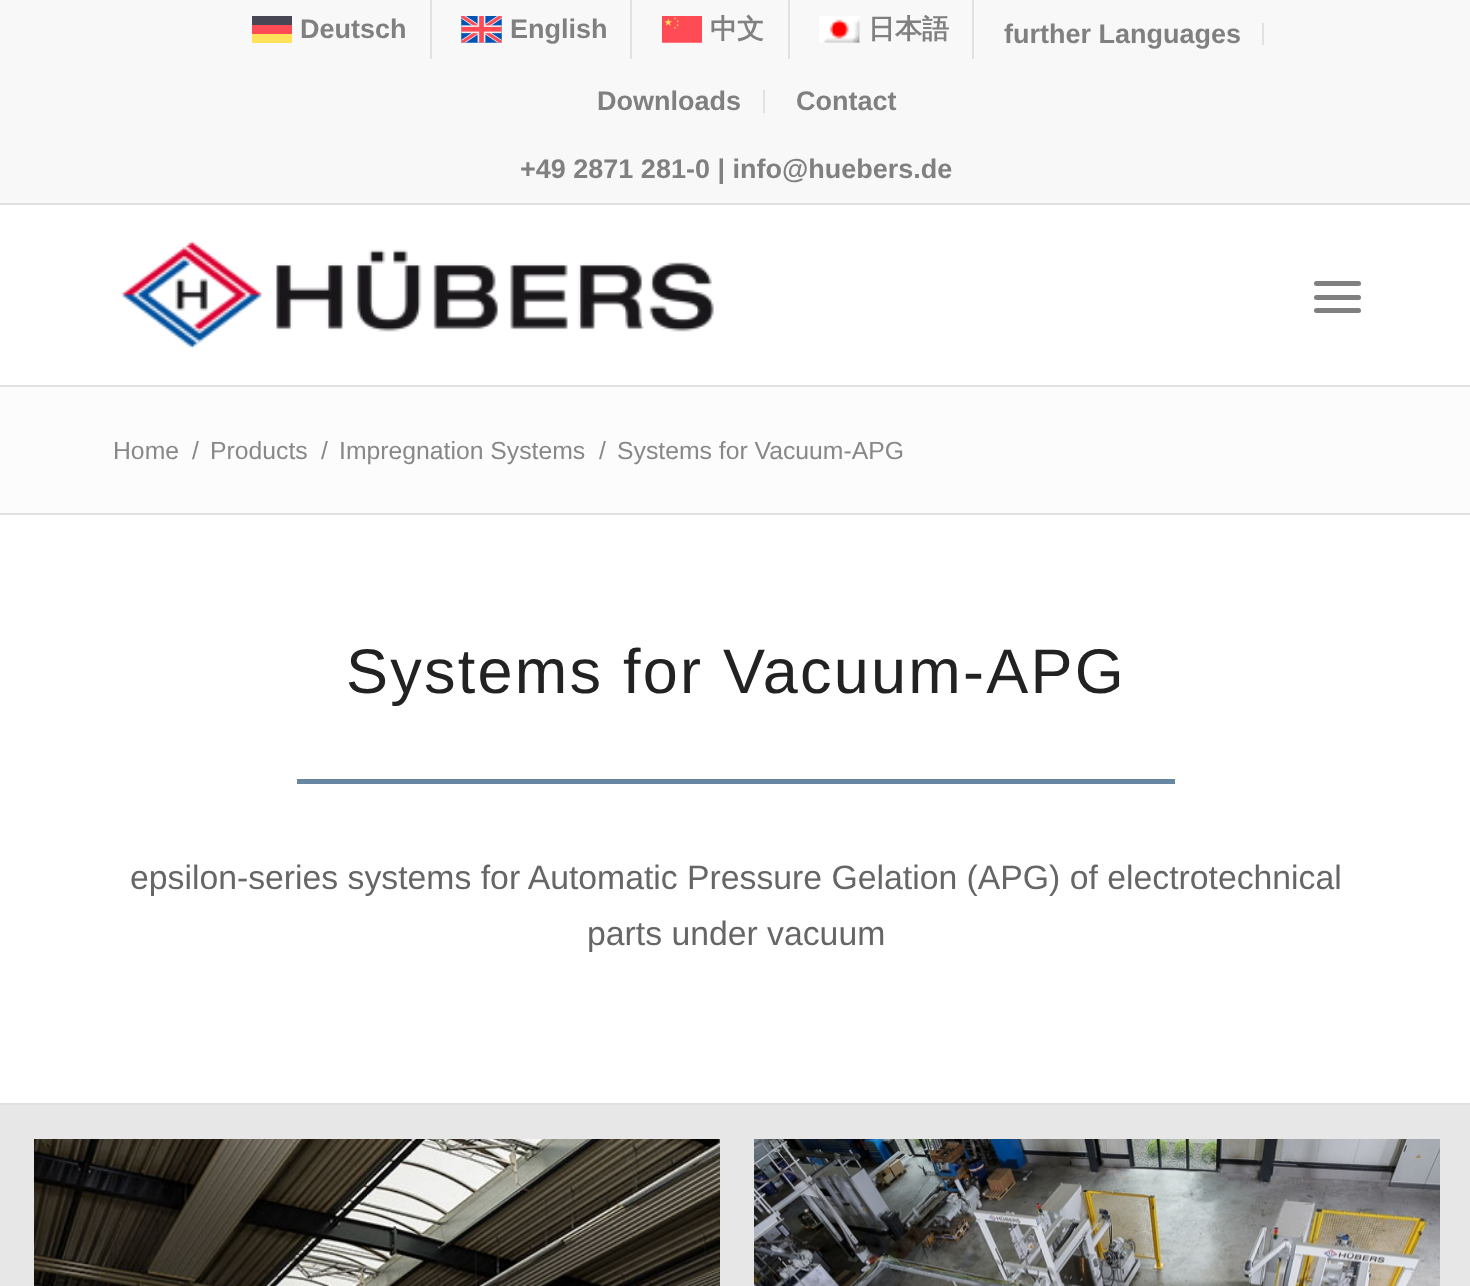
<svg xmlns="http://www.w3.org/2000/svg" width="1470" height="1286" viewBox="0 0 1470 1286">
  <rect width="100%" height="100%" fill="rgb(255,255,255)"/>
  <rect x="0" y="0" width="1470" height="203" fill="rgb(248,248,248)"/>
  <rect x="0" y="203" width="1470" height="2" fill="rgb(225,225,225)"/>
  <rect x="430" y="0" width="2" height="59" fill="rgb(225,225,225)"/>
  <rect x="252" y="25" width="40" height="9" fill="rgb(255,75,85)"/>
  <rect x="252" y="34" width="40" height="9" fill="rgb(255,225,90)"/>
  <rect x="252" y="16" width="40" height="9" fill="rgb(70,70,85)"/>
  <text x="300" y="38" font-family="Liberation Sans" font-size="27" font-weight="bold" fill="rgb(128,128,128)">Deutsch</text>
  <rect x="630" y="0" width="2" height="59" fill="rgb(225,225,225)"/>
  <image x="461" y="16" width="41" height="27" href="pic1.png"/>
  <text x="510" y="38" font-family="Liberation Sans" font-size="27" font-weight="bold" fill="rgb(128,128,128)">English</text>
  <rect x="788" y="0" width="2" height="59" fill="rgb(225,225,225)"/>
  <image x="662" y="16" width="40" height="27" href="pic2.png"/>
  <text x="710" y="38" font-family="WenQuanYi Zen Hei" font-size="27" font-weight="bold" fill="rgb(128,128,128)">中文</text>
  <rect x="972" y="0" width="2" height="59" fill="rgb(225,225,225)"/>
  <image x="819" y="16" width="41" height="27" href="pic3.png"/>
  <text x="868" y="38" font-family="WenQuanYi Zen Hei" font-size="27" font-weight="bold" fill="rgb(128,128,128)">日本語</text>
  <rect x="1262" y="23" width="2" height="22" fill="rgb(225,225,225)"/>
  <text x="1004" y="43" font-family="Liberation Sans" font-size="27" font-weight="bold" fill="rgb(128,128,128)">further Languages</text>
  <rect x="763" y="90" width="2" height="23" fill="rgb(225,225,225)"/>
  <g font-family="Liberation Sans" font-size="27" font-weight="bold" fill="rgb(128,128,128)">
    <text x="597" y="110">Downloads</text>
    <text x="796" y="110">Contact</text>
    <text x="520" y="178">+49 2871 281-0 | info@huebers.de</text>
  </g>
  <rect x="0" y="385" width="1470" height="2" fill="rgb(225,225,225)"/>
  <image x="121" y="240" width="593" height="109" href="pic4.png"/>
  <rect x="1314" y="295" width="47" height="5" rx="2.5" fill="rgb(128,128,128)"/>
  <rect x="1314" y="281" width="47" height="5" rx="2.5" fill="rgb(128,128,128)"/>
  <rect x="1314" y="308" width="47" height="5" rx="2.5" fill="rgb(128,128,128)"/>
  <rect x="0" y="387" width="1470" height="126" fill="rgb(252,252,252)"/>
  <g font-family="Liberation Sans" font-size="24.75" fill="rgb(136,136,136)">
    <text x="113" y="459">Home</text>
    <text x="192" y="459">/</text>
    <text x="210" y="459">Products</text>
    <text x="321" y="459">/</text>
    <text x="339" y="459">Impregnation Systems</text>
    <text x="599" y="459">/</text>
    <text x="617" y="459">Systems for Vacuum-APG</text>
  </g>
  <rect x="0" y="513" width="1470" height="2" fill="rgb(225,225,225)"/>
  <text x="346" y="693" font-family="Liberation Sans" font-size="63" letter-spacing="2.25" fill="rgb(34,34,34)">Systems for Vacuum-APG</text>
  <rect x="297" y="779" width="878" height="5" fill="rgb(103,134,161)"/>
  <g font-family="Liberation Sans" font-size="33.75" fill="rgb(102,102,102)">
    <text x="130" y="889">epsilon-series systems for Automatic Pressure Gelation (APG) of electrotechnical</text>
    <text x="587" y="945">parts under vacuum</text>
  </g>
  <rect x="0" y="1103" width="1470" height="2" fill="rgb(225,225,225)"/>
  <rect x="0" y="1105" width="1470" height="181" fill="rgb(231,231,231)"/>
  <image x="34" y="1139" width="686" height="147" href="pic5.png"/>
  <image x="754" y="1139" width="686" height="147" href="pic6.png"/>
</svg>
